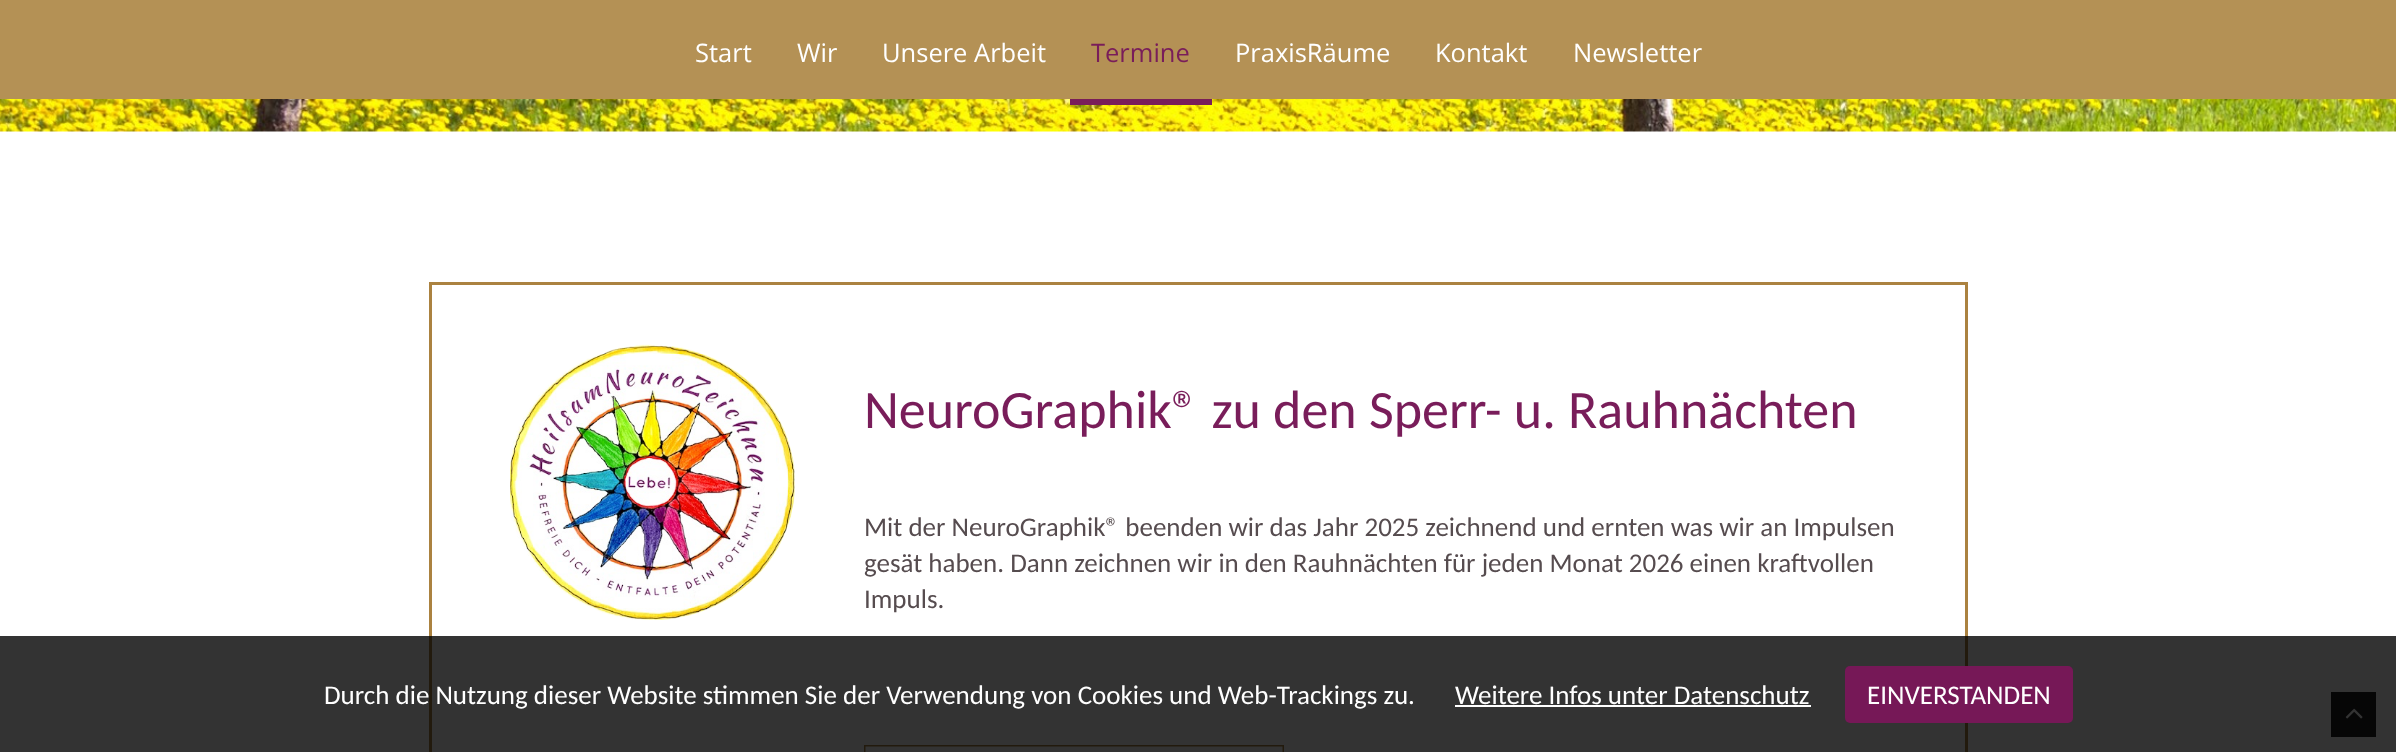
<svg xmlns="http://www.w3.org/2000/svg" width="2396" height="752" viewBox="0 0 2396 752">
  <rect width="100%" height="100%" fill="rgb(255,255,255)"/>
  <rect x="0" y="0" width="2396" height="99" fill="rgb(180,145,85)"/>
  <g font-family="Open Sans" font-size="25.5" fill="rgb(255,255,255)">
    <text x="695" y="62">Start</text>
    <text x="797" y="62">Wir</text>
    <text x="882" y="62">Unsere Arbeit</text>
  </g>
  <image x="0" y="99" width="2396" height="33" href="pic1.png"/>
  <rect x="1070" y="99" width="142" height="6" fill="rgb(121,29,90)"/>
  <text x="1091" y="62" font-family="Open Sans" font-size="25.5" fill="rgb(121,29,90)">Termine</text>
  <g font-family="Open Sans" font-size="25.5" fill="rgb(255,255,255)">
    <text x="1235" y="62">PraxisRäume</text>
    <text x="1435" y="62">Kontakt</text>
    <text x="1573" y="62">Newsletter</text>
  </g>
  <rect x="430.5" y="283.5" width="1536" height="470" fill="none" stroke="rgb(171,130,64)" stroke-width="3"/>
  <image x="510" y="344" width="285" height="276" href="pic2.png"/>
  <text x="864" y="428" font-family="Carlito" font-size="54" fill="rgb(121,29,90)">NeuroGraphik® zu den Sperr- u. Rauhnächten</text>
  <g font-family="Carlito" font-size="27" fill="rgb(86,76,79)">
    <text>
      <tspan x="864" y="536">Mit der NeuroGraphik® beenden wir das Jahr 2025 zeichnend und ernten was wir an Impulsen</tspan>
      <tspan x="864" y="572">gesät haben. Dann zeichnen wir in den Rauhnächten für jeden Monat 2026 einen kraftvollen</tspan>
      <tspan x="864" y="608">Impuls.</tspan>
    </text>
  </g>
  <image x="864" y="745" width="420" height="7" href="pic3.png"/>
  <rect x="2331" y="692" width="45" height="45" fill="rgb(34,34,34)"/>
  <image x="2345" y="708" width="18" height="11" href="pic4.png"/>
  <rect x="0" y="636" width="2396" height="116" fill="rgba(0,0,0,0.8)"/>
  <g font-family="Carlito" font-size="27" fill="rgb(255,255,255)">
    <text x="324" y="704">Durch die Nutzung dieser Website stimmen Sie der Verwendung von Cookies und Web-Trackings zu.</text>
    <text x="1455" y="704">Weitere Infos unter Datenschutz</text>
  </g>
  <rect x="1455" y="705" width="356" height="2" fill="rgb(255,255,255)"/>
  <rect x="1845" y="666" width="228" height="57" rx="5" fill="rgb(118,24,87)"/>
  <text x="1867" y="704" font-family="Carlito" font-size="27" fill="rgb(255,255,255)">EINVERSTANDEN</text>
</svg>
